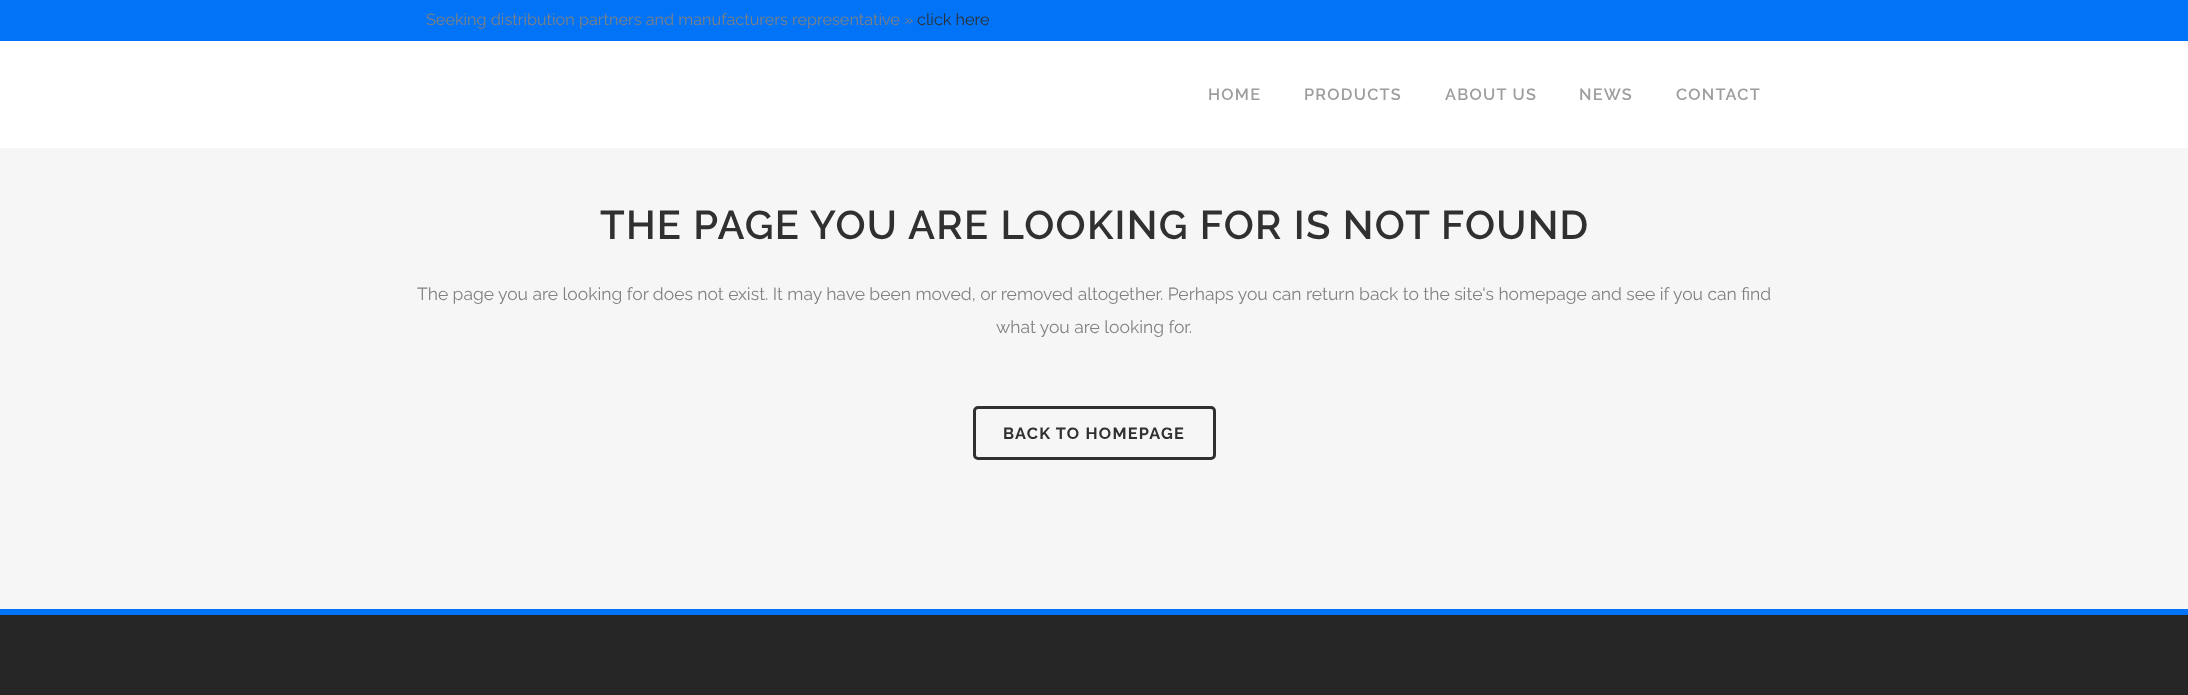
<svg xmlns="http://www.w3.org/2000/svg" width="2188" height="695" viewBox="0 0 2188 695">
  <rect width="100%" height="100%" fill="rgb(246,246,246)"/>
  <rect x="0" y="0" width="2188" height="41" fill="rgb(0,115,247)"/>
  <text x="426" y="25" font-family="Raleway" font-size="16.25" fill="rgb(129,129,129)">Seeking distribution partners and manufacturers representative »</text>
  <text x="917" y="25" font-family="Raleway" font-size="16.25" fill="rgb(48,48,48)">click here</text>
  <rect x="0" y="41" width="2188" height="107" fill="rgb(255,255,255)"/>
  <g font-family="Raleway" font-size="16.25" font-weight="600" letter-spacing="1.25" fill="rgb(157,157,157)">
    <text x="1208" y="100">HOME</text>
    <text x="1304" y="100">PRODUCTS</text>
    <text x="1445" y="100">ABOUT US</text>
    <text x="1579" y="100">NEWS</text>
    <text x="1676" y="100">CONTACT</text>
  </g>
  <text x="600" y="239" font-family="Raleway" font-size="40" font-weight="600" letter-spacing="1.25" fill="rgb(48,48,48)">THE PAGE YOU ARE LOOKING FOR IS NOT FOUND</text>
  <g font-family="Raleway" font-size="17.5" fill="rgb(129,129,129)">
    <text x="417" y="300">The page you are looking for does not exist. It may have been moved, or removed altogether. Perhaps you can return back to the site's homepage and see if you can find</text>
    <text x="996" y="333">what you are looking for.</text>
  </g>
  <rect x="974.5" y="407.5" width="240" height="51" rx="3.5" fill="none" stroke="rgb(48,48,48)" stroke-width="3"/>
  <text x="1003" y="439" font-family="Raleway" font-size="16.25" font-weight="bold" letter-spacing="1.25" fill="rgb(48,48,48)">BACK TO HOMEPAGE</text>
  <rect x="0" y="615" width="2188" height="80" fill="rgb(38,38,38)"/>
  <rect x="0" y="609" width="2188" height="6" fill="rgb(0,115,247)"/>
</svg>
